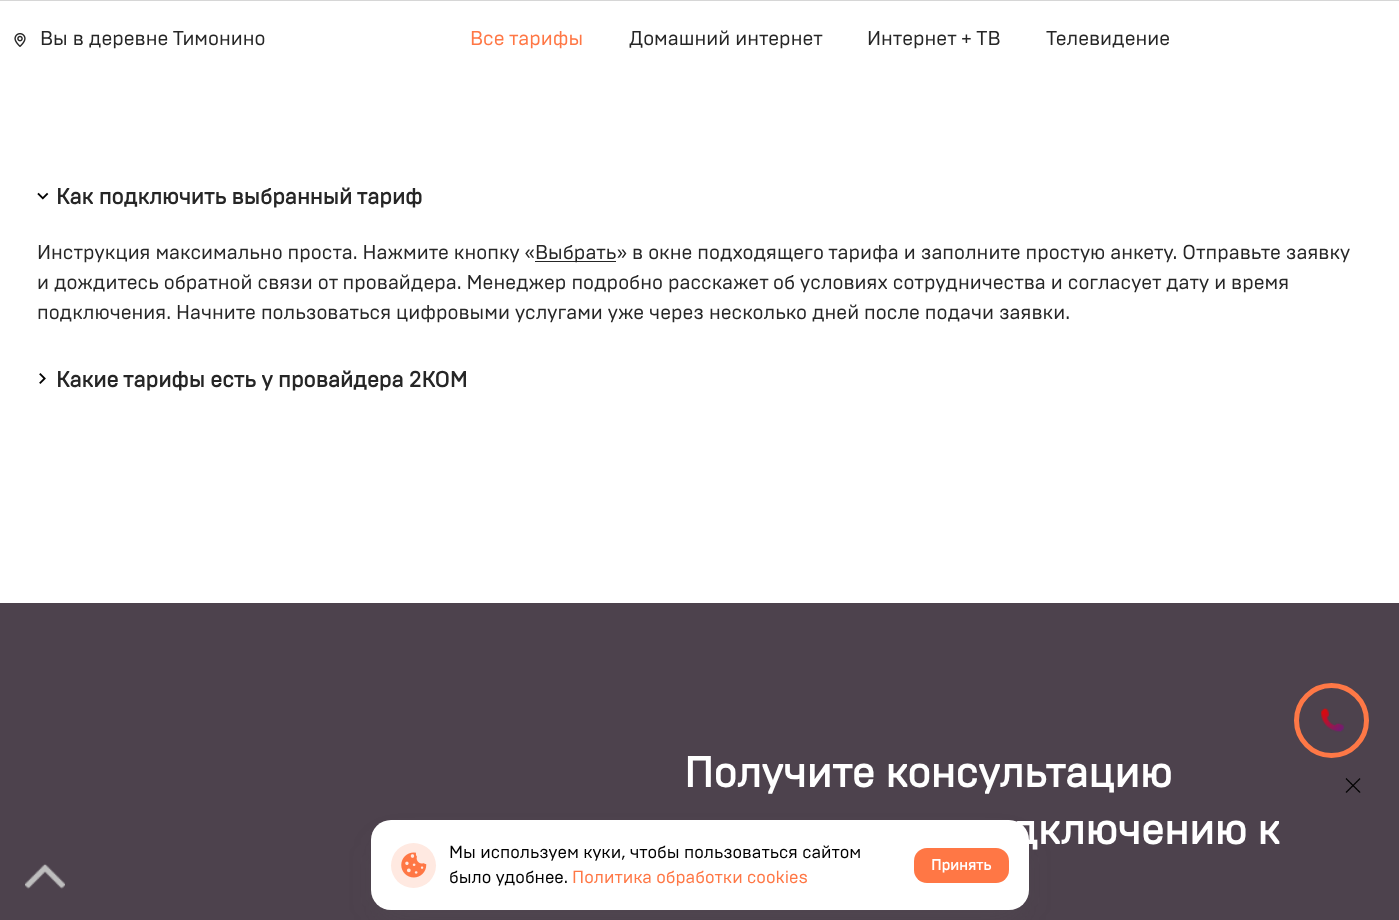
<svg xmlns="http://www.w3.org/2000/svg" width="1399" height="920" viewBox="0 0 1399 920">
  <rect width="100%" height="100%" fill="rgb(255,255,255)"/>
  <rect x="0" y="0" width="1399" height="1" fill="rgb(214,214,214)"/>
  <image x="14" y="33" width="12" height="14" href="pic1.png"/>
  <text x="40" y="45" font-family="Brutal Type" font-size="20" fill="rgb(38,38,38)">Вы в деревне Тимонино</text>
  <text x="470" y="45" font-family="Brutal Type" font-size="20" fill="rgb(255,119,69)">Все тарифы</text>
  <g font-family="Brutal Type" font-size="20" fill="rgb(38,38,38)">
    <text x="629" y="45">Домашний интернет</text>
    <text x="867" y="45">Интернет + ТВ</text>
    <text x="1046" y="45">Телевидение</text>
  </g>
  <image x="37" y="192" width="12" height="8" href="pic2.png"/>
  <text x="56" y="204" font-family="Brutal Type" font-size="22" font-weight="bold" fill="rgb(38,38,38)">Как подключить выбранный тариф</text>
  <text x="37" y="259" font-family="Brutal Type" font-size="20" fill="rgb(38,38,38)">Инструкция максимально проста. Нажмите кнопку «</text>
  <rect x="535" y="261" width="81" height="1" fill="rgb(38,38,38)"/>
  <g font-family="Brutal Type" font-size="20" fill="rgb(38,38,38)">
    <text x="535" y="259">Выбрать» в окне подходящего тарифа и заполните простую анкету. Отправьте заявку</text>
    <text>
      <tspan x="37" y="289">и дождитесь обратной связи от провайдера. Менеджер подробно расскажет об условиях сотрудничества и согласует дату и время</tspan>
      <tspan x="37" y="319">подключения. Начните пользоваться цифровыми услугами уже через несколько дней после подачи заявки.</tspan>
    </text>
  </g>
  <image x="39" y="373" width="7" height="11" href="pic3.png"/>
  <text x="56" y="387" font-family="Brutal Type" font-size="22" font-weight="bold" fill="rgb(38,38,38)">Какие тарифы есть у провайдера 2КОМ</text>
  <rect x="0" y="603" width="1399" height="317" fill="rgb(77,66,77)"/>
  <circle cx="1331.5" cy="720.5" r="35" fill="none" stroke="rgb(254,120,70)" stroke-width="5"/>
  <image x="1321" y="708" width="23" height="24" href="pic4.png"/>
  <image x="1345" y="778" width="16" height="15" href="pic5.png"/>
  <g font-family="Brutal Type" font-size="42.5" font-weight="bold" fill="rgb(255,255,255)">
    <text x="684" y="787">Получите консультацию</text>
    <text x="1011" y="844">дключению к</text>
  </g>
  <image x="25" y="864" width="40" height="25" href="pic6.png"/>
  <rect x="379" y="843" width="642" height="75" rx="13" fill="rgba(96,96,96,0.15)" filter="blur(15px)"/>
  <rect x="371" y="820" width="658" height="90" rx="20" fill="rgb(255,255,255)"/>
  <circle cx="413.5" cy="865.5" r="22.5" fill="rgb(255,233,225)"/>
  <image x="401" y="852" width="26" height="26" href="pic7.png"/>
  <g font-family="Brutal Type" font-size="17.5" fill="rgb(0,0,0)">
    <text>
      <tspan x="449" y="858">Мы используем куки, чтобы пользоваться сайтом</tspan>
      <tspan x="449" y="883">было удобнее.</tspan>
    </text>
  </g>
  <text x="572" y="883" font-family="Brutal Type" font-size="17.5" fill="rgb(255,119,69)">Политика обработки cookies</text>
  <rect x="914" y="848" width="95" height="35" rx="13" fill="rgb(255,119,69)"/>
  <text x="931" y="870" font-family="Brutal Type" font-size="15" font-weight="bold" fill="rgb(255,255,255)">Принять</text>
</svg>
